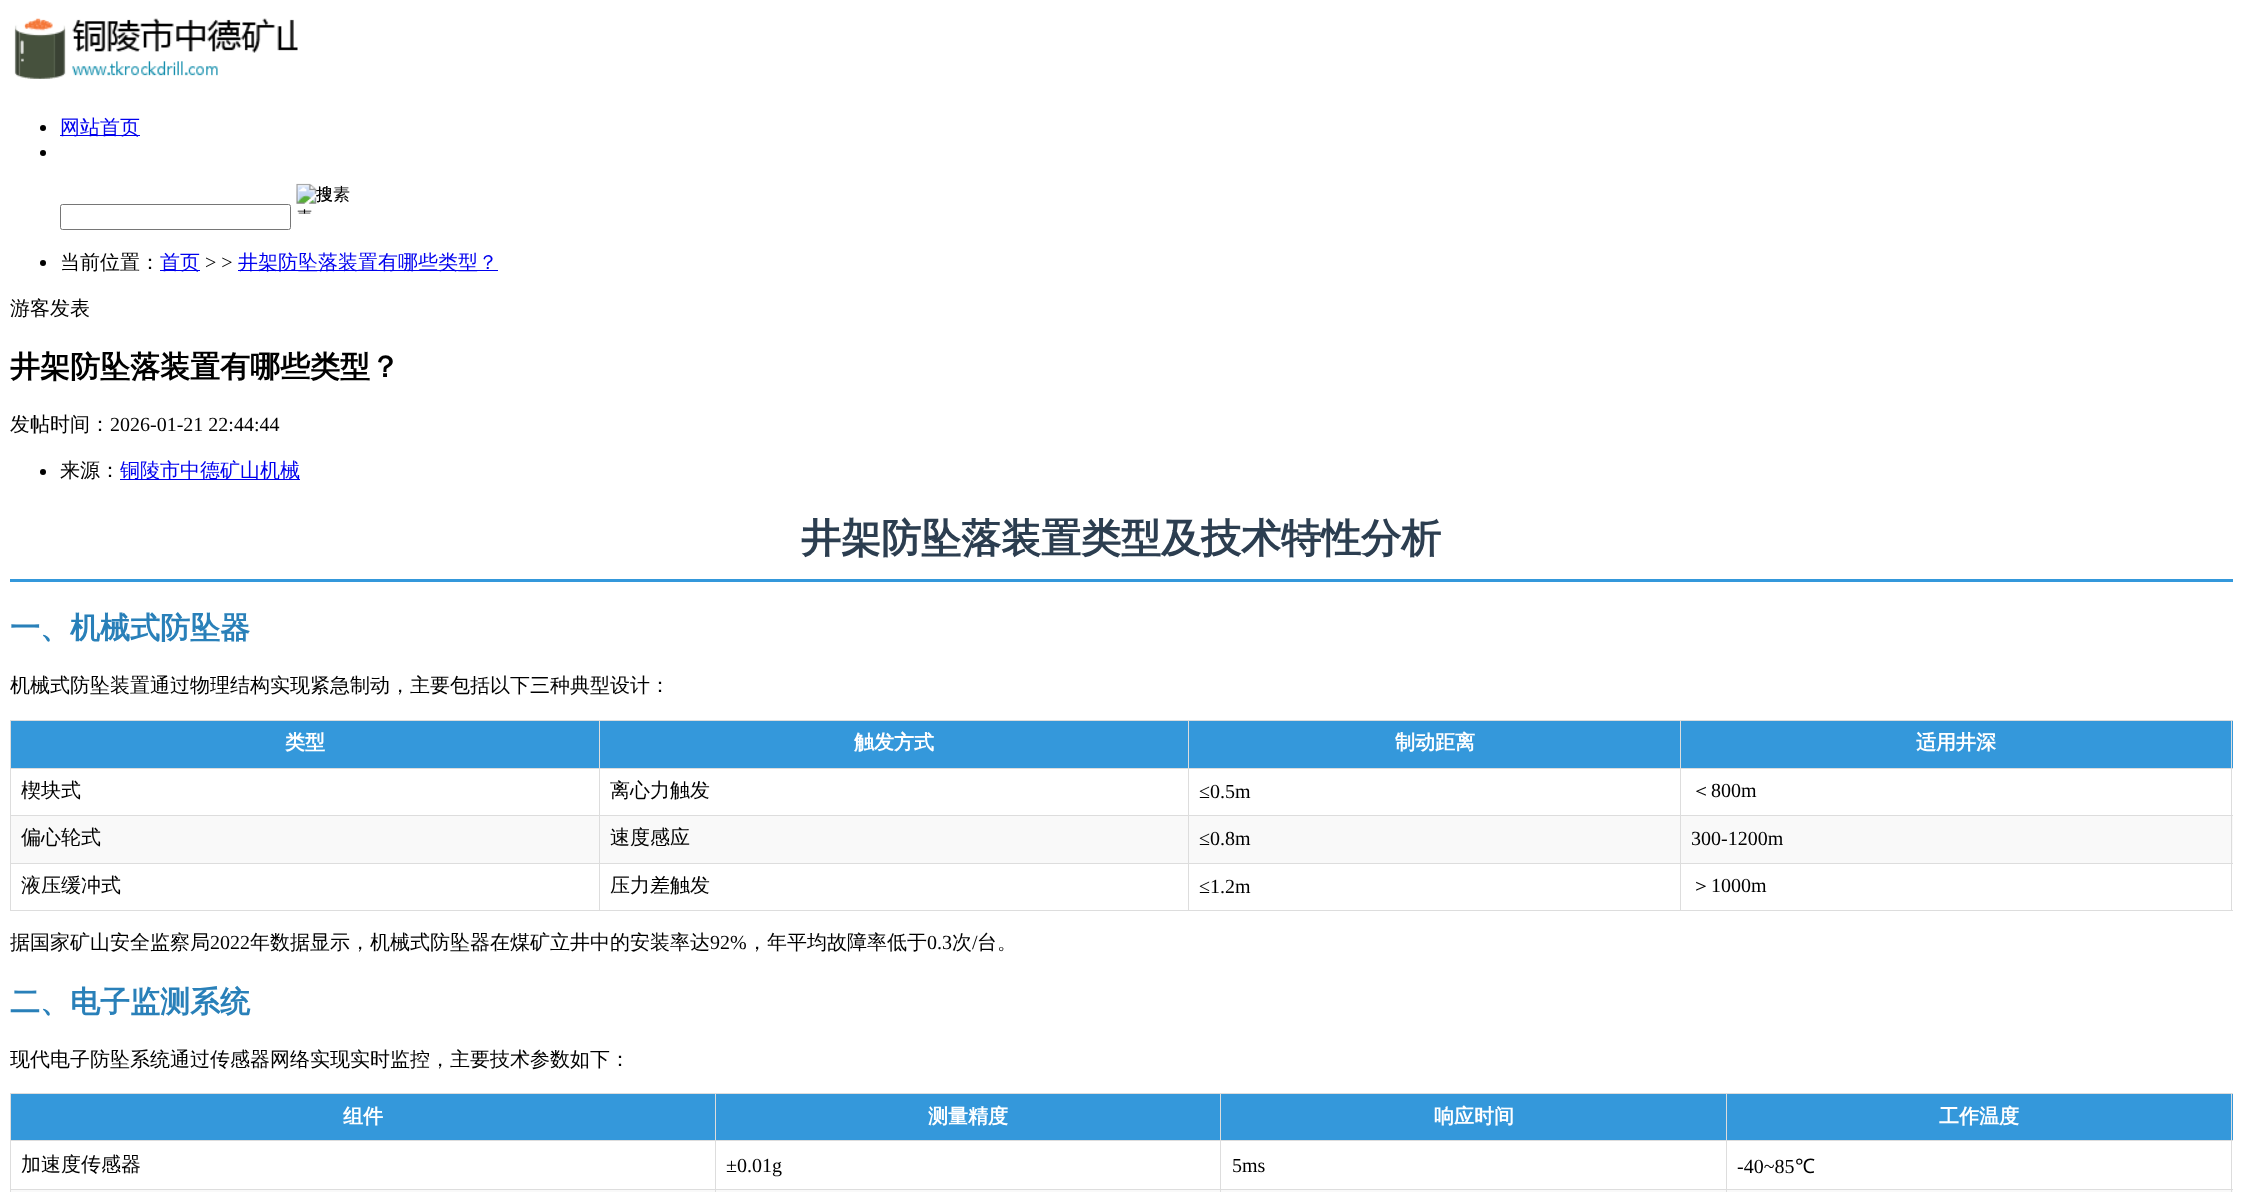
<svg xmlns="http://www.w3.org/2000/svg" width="2242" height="1192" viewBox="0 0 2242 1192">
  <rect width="100%" height="100%" fill="rgb(255,255,255)"/>
  <image x="14" y="18" width="284" height="61" href="pic1.png"/>
  <circle cx="43" cy="128" r="3" fill="rgb(0,0,0)"/>
  <rect x="60" y="135" width="80" height="1" fill="rgb(0,0,238)"/>
  <text x="60" y="134" font-family="WenQuanYi Zen Hei" font-size="20" font-weight="500" fill="rgb(0,0,238)">网站首页</text>
  <circle cx="43" cy="153" r="3" fill="rgb(0,0,0)"/>
  <image x="296" y="183" width="36" height="31" href="pic2.png"/>
  <text x="316" y="200" font-family="WenQuanYi Zen Hei" font-size="17" font-weight="500" fill="rgb(0,0,0)">搜素</text>
  <rect x="60.5" y="204.5" width="230" height="25" rx="2" fill="none" stroke="rgb(118,118,118)"/>
  <circle cx="43" cy="263" r="3" fill="rgb(0,0,0)"/>
  <text x="60" y="269" font-family="WenQuanYi Zen Hei" font-size="20" font-weight="500" fill="rgb(0,0,0)">当前位置：</text>
  <rect x="160" y="270" width="40" height="1" fill="rgb(0,0,238)"/>
  <text x="160" y="269" font-family="WenQuanYi Zen Hei" font-size="20" font-weight="500" fill="rgb(0,0,238)">首页</text>
  <text x="205" y="269" font-family="Liberation Serif" font-size="20" fill="rgb(0,0,0)">&gt; &gt;</text>
  <rect x="238" y="270" width="260" height="1" fill="rgb(0,0,238)"/>
  <text x="238" y="269" font-family="WenQuanYi Zen Hei" font-size="20" font-weight="500" fill="rgb(0,0,238)">井架防坠落装置有哪些类型？</text>
  <text x="10" y="315" font-family="WenQuanYi Zen Hei" font-size="20" font-weight="500" fill="rgb(0,0,0)">游客发表</text>
  <text x="10" y="377" font-family="WenQuanYi Zen Hei" font-size="30" font-weight="bold" fill="rgb(0,0,0)">井架防坠落装置有哪些类型？</text>
  <text x="10" y="431" font-family="WenQuanYi Zen Hei" font-size="20" font-weight="500" fill="rgb(0,0,0)">发帖时间：</text>
  <text x="110" y="431" font-family="Liberation Serif" font-size="20" fill="rgb(0,0,0)">2026-01-21 22:44:44</text>
  <circle cx="43" cy="472" r="3" fill="rgb(0,0,0)"/>
  <text x="60" y="477" font-family="WenQuanYi Zen Hei" font-size="20" font-weight="500" fill="rgb(0,0,0)">来源：</text>
  <rect x="120" y="479" width="180" height="1" fill="rgb(0,0,238)"/>
  <text x="120" y="477" font-family="WenQuanYi Zen Hei" font-size="20" font-weight="500" fill="rgb(0,0,238)">铜陵市中德矿山机械</text>
  <rect x="10" y="579" width="2223" height="3" fill="rgb(52,152,219)"/>
  <text x="801" y="552" font-family="WenQuanYi Zen Hei" font-size="40" font-weight="bold" fill="rgb(44,62,80)">井架防坠落装置类型及技术特性分析</text>
  <text x="10" y="638" font-family="WenQuanYi Zen Hei" font-size="30" font-weight="bold" fill="rgb(41,128,185)">一、机械式防坠器</text>
  <text x="10" y="692" font-family="WenQuanYi Zen Hei" font-size="20" font-weight="500" fill="rgb(0,0,0)">机械式防坠装置通过物理结构实现紧急制动，主要包括以下三种典型设计：</text>
  <rect x="11" y="721" width="2222" height="47" fill="rgb(52,152,219)"/>
  <rect x="1680" y="720" width="553" height="1" fill="rgb(221,221,221)"/>
  <rect x="1680" y="768" width="553" height="1" fill="rgb(221,221,221)"/>
  <rect x="1680" y="815" width="553" height="1" fill="rgb(221,221,221)"/>
  <rect x="11" y="816" width="2222" height="47" fill="rgb(249,249,249)"/>
  <rect x="1680" y="863" width="553" height="1" fill="rgb(221,221,221)"/>
  <rect x="2231" y="863" width="1" height="48" fill="rgb(221,221,221)"/>
  <rect x="1680" y="910" width="553" height="1" fill="rgb(221,221,221)"/>
  <rect x="1680" y="863" width="1" height="48" fill="rgb(221,221,221)"/>
  <rect x="1188" y="863" width="493" height="1" fill="rgb(221,221,221)"/>
  <rect x="1680" y="815" width="1" height="49" fill="rgb(221,221,221)"/>
  <rect x="1188" y="815" width="493" height="1" fill="rgb(221,221,221)"/>
  <rect x="1680" y="768" width="1" height="48" fill="rgb(221,221,221)"/>
  <rect x="1188" y="768" width="493" height="1" fill="rgb(221,221,221)"/>
  <rect x="1680" y="720" width="1" height="49" fill="rgb(221,221,221)"/>
  <rect x="1188" y="720" width="493" height="1" fill="rgb(221,221,221)"/>
  <rect x="1188" y="910" width="493" height="1" fill="rgb(221,221,221)"/>
  <rect x="1188" y="863" width="1" height="48" fill="rgb(221,221,221)"/>
  <rect x="599" y="863" width="590" height="1" fill="rgb(221,221,221)"/>
  <rect x="1188" y="815" width="1" height="49" fill="rgb(221,221,221)"/>
  <rect x="599" y="815" width="590" height="1" fill="rgb(221,221,221)"/>
  <rect x="1188" y="768" width="1" height="48" fill="rgb(221,221,221)"/>
  <rect x="599" y="768" width="590" height="1" fill="rgb(221,221,221)"/>
  <rect x="1188" y="720" width="1" height="49" fill="rgb(221,221,221)"/>
  <rect x="599" y="720" width="590" height="1" fill="rgb(221,221,221)"/>
  <rect x="599" y="910" width="590" height="1" fill="rgb(221,221,221)"/>
  <rect x="599" y="863" width="1" height="48" fill="rgb(221,221,221)"/>
  <rect x="10" y="863" width="590" height="1" fill="rgb(221,221,221)"/>
  <rect x="599" y="815" width="1" height="49" fill="rgb(221,221,221)"/>
  <rect x="10" y="815" width="590" height="1" fill="rgb(221,221,221)"/>
  <rect x="599" y="768" width="1" height="48" fill="rgb(221,221,221)"/>
  <rect x="10" y="768" width="590" height="1" fill="rgb(221,221,221)"/>
  <rect x="599" y="720" width="1" height="49" fill="rgb(221,221,221)"/>
  <rect x="10" y="720" width="590" height="1" fill="rgb(221,221,221)"/>
  <rect x="10" y="910" width="590" height="1" fill="rgb(221,221,221)"/>
  <rect x="10" y="863" width="1" height="48" fill="rgb(221,221,221)"/>
  <rect x="10" y="815" width="1" height="49" fill="rgb(221,221,221)"/>
  <rect x="10" y="768" width="1" height="48" fill="rgb(221,221,221)"/>
  <rect x="10" y="720" width="1" height="49" fill="rgb(221,221,221)"/>
  <g font-family="WenQuanYi Zen Hei" font-size="20" font-weight="bold" fill="rgb(255,255,255)">
    <text x="285" y="749">类型</text>
    <text x="854" y="749">触发方式</text>
    <text x="1395" y="749">制动距离</text>
  </g>
  <rect x="2231" y="815" width="1" height="49" fill="rgb(221,221,221)"/>
  <rect x="2231" y="768" width="1" height="48" fill="rgb(221,221,221)"/>
  <rect x="2231" y="720" width="1" height="49" fill="rgb(221,221,221)"/>
  <text x="1916" y="749" font-family="WenQuanYi Zen Hei" font-size="20" font-weight="bold" fill="rgb(255,255,255)">适用井深</text>
  <g font-family="WenQuanYi Zen Hei" font-size="20" font-weight="500" fill="rgb(0,0,0)">
    <text x="21" y="797">楔块式</text>
    <text x="610" y="797">离心力触发</text>
  </g>
  <text x="1199" y="798" font-family="Liberation Serif" font-size="20" fill="rgb(0,0,0)">≤0.5m</text>
  <text x="1691" y="797" font-family="WenQuanYi Zen Hei" font-size="20" font-weight="500" fill="rgb(0,0,0)">＜</text>
  <text x="1711" y="797" font-family="Liberation Serif" font-size="20" fill="rgb(0,0,0)">800m</text>
  <g font-family="WenQuanYi Zen Hei" font-size="20" font-weight="500" fill="rgb(0,0,0)">
    <text x="21" y="844">偏心轮式</text>
    <text x="610" y="844">速度感应</text>
  </g>
  <g font-family="Liberation Serif" font-size="20" fill="rgb(0,0,0)">
    <text x="1199" y="845">≤0.8m</text>
    <text x="1691" y="845">300-1200m</text>
  </g>
  <g font-family="WenQuanYi Zen Hei" font-size="20" font-weight="500" fill="rgb(0,0,0)">
    <text x="21" y="892">液压缓冲式</text>
    <text x="610" y="892">压力差触发</text>
  </g>
  <text x="1199" y="893" font-family="Liberation Serif" font-size="20" fill="rgb(0,0,0)">≤1.2m</text>
  <text x="1691" y="892" font-family="WenQuanYi Zen Hei" font-size="20" font-weight="500" fill="rgb(0,0,0)">＞</text>
  <text x="1711" y="892" font-family="Liberation Serif" font-size="20" fill="rgb(0,0,0)">1000m</text>
  <text x="10" y="949" font-family="WenQuanYi Zen Hei" font-size="20" font-weight="500" fill="rgb(0,0,0)">据国家矿山安全监察局</text>
  <text x="210" y="949" font-family="Liberation Serif" font-size="20" fill="rgb(0,0,0)">2022</text>
  <text x="250" y="949" font-family="WenQuanYi Zen Hei" font-size="20" font-weight="500" fill="rgb(0,0,0)">年数据显示，机械式防坠器在煤矿立井中的安装率达</text>
  <text x="710" y="949" font-family="Liberation Serif" font-size="20" fill="rgb(0,0,0)">92%</text>
  <text x="747" y="949" font-family="WenQuanYi Zen Hei" font-size="20" font-weight="500" fill="rgb(0,0,0)">，年平均故障率低于</text>
  <text x="927" y="949" font-family="Liberation Serif" font-size="20" fill="rgb(0,0,0)">0.3</text>
  <text x="952" y="949" font-family="WenQuanYi Zen Hei" font-size="20" font-weight="500" fill="rgb(0,0,0)">次</text>
  <text x="972" y="949" font-family="Liberation Serif" font-size="20" fill="rgb(0,0,0)">/</text>
  <text x="977" y="949" font-family="WenQuanYi Zen Hei" font-size="20" font-weight="500" fill="rgb(0,0,0)">台。</text>
  <text x="10" y="1012" font-family="WenQuanYi Zen Hei" font-size="30" font-weight="bold" fill="rgb(41,128,185)">二、电子监测系统</text>
  <text x="10" y="1066" font-family="WenQuanYi Zen Hei" font-size="20" font-weight="500" fill="rgb(0,0,0)">现代电子防坠系统通过传感器网络实现实时监控，主要技术参数如下：</text>
  <rect x="11" y="1094" width="2222" height="46" fill="rgb(52,152,219)"/>
  <rect x="1726" y="1093" width="507" height="1" fill="rgb(221,221,221)"/>
  <rect x="1726" y="1140" width="507" height="1" fill="rgb(221,221,221)"/>
  <rect x="1726" y="1189" width="507" height="1" fill="rgb(221,221,221)"/>
  <rect x="11" y="1190" width="2222" height="2" fill="rgb(249,249,249)"/>
  <rect x="1726" y="1189" width="1" height="3" fill="rgb(221,221,221)"/>
  <rect x="1220" y="1189" width="508" height="1" fill="rgb(221,221,221)"/>
  <rect x="1726" y="1140" width="1" height="50" fill="rgb(221,221,221)"/>
  <rect x="1220" y="1140" width="508" height="1" fill="rgb(221,221,221)"/>
  <rect x="1726" y="1093" width="1" height="48" fill="rgb(221,221,221)"/>
  <rect x="1220" y="1093" width="508" height="1" fill="rgb(221,221,221)"/>
  <rect x="1220" y="1189" width="1" height="3" fill="rgb(221,221,221)"/>
  <rect x="715" y="1189" width="506" height="1" fill="rgb(221,221,221)"/>
  <rect x="1220" y="1140" width="1" height="50" fill="rgb(221,221,221)"/>
  <rect x="715" y="1140" width="506" height="1" fill="rgb(221,221,221)"/>
  <rect x="1220" y="1093" width="1" height="48" fill="rgb(221,221,221)"/>
  <rect x="715" y="1093" width="506" height="1" fill="rgb(221,221,221)"/>
  <rect x="715" y="1189" width="1" height="3" fill="rgb(221,221,221)"/>
  <rect x="10" y="1189" width="706" height="1" fill="rgb(221,221,221)"/>
  <rect x="715" y="1140" width="1" height="50" fill="rgb(221,221,221)"/>
  <rect x="10" y="1140" width="706" height="1" fill="rgb(221,221,221)"/>
  <rect x="715" y="1093" width="1" height="48" fill="rgb(221,221,221)"/>
  <rect x="10" y="1093" width="706" height="1" fill="rgb(221,221,221)"/>
  <rect x="10" y="1189" width="1" height="3" fill="rgb(221,221,221)"/>
  <rect x="10" y="1140" width="1" height="50" fill="rgb(221,221,221)"/>
  <rect x="10" y="1093" width="1" height="48" fill="rgb(221,221,221)"/>
  <g font-family="WenQuanYi Zen Hei" font-size="20" font-weight="bold" fill="rgb(255,255,255)">
    <text x="343" y="1123">组件</text>
    <text x="928" y="1123">测量精度</text>
    <text x="1434" y="1123">响应时间</text>
  </g>
  <rect x="2231" y="1189" width="1" height="3" fill="rgb(221,221,221)"/>
  <rect x="2231" y="1140" width="1" height="50" fill="rgb(221,221,221)"/>
  <rect x="2231" y="1093" width="1" height="48" fill="rgb(221,221,221)"/>
  <text x="1939" y="1123" font-family="WenQuanYi Zen Hei" font-size="20" font-weight="bold" fill="rgb(255,255,255)">工作温度</text>
  <text x="21" y="1171" font-family="WenQuanYi Zen Hei" font-size="20" font-weight="500" fill="rgb(0,0,0)">加速度传感器</text>
  <g font-family="Liberation Serif" font-size="20" fill="rgb(0,0,0)">
    <text x="726" y="1172">±0.01g</text>
    <text x="1232" y="1172">5ms</text>
    <text x="1737" y="1173">-40~85</text>
  </g>
  <text x="1795" y="1173" font-family="Noto Sans" font-size="20" fill="rgb(0,0,0)">℃</text>
</svg>
